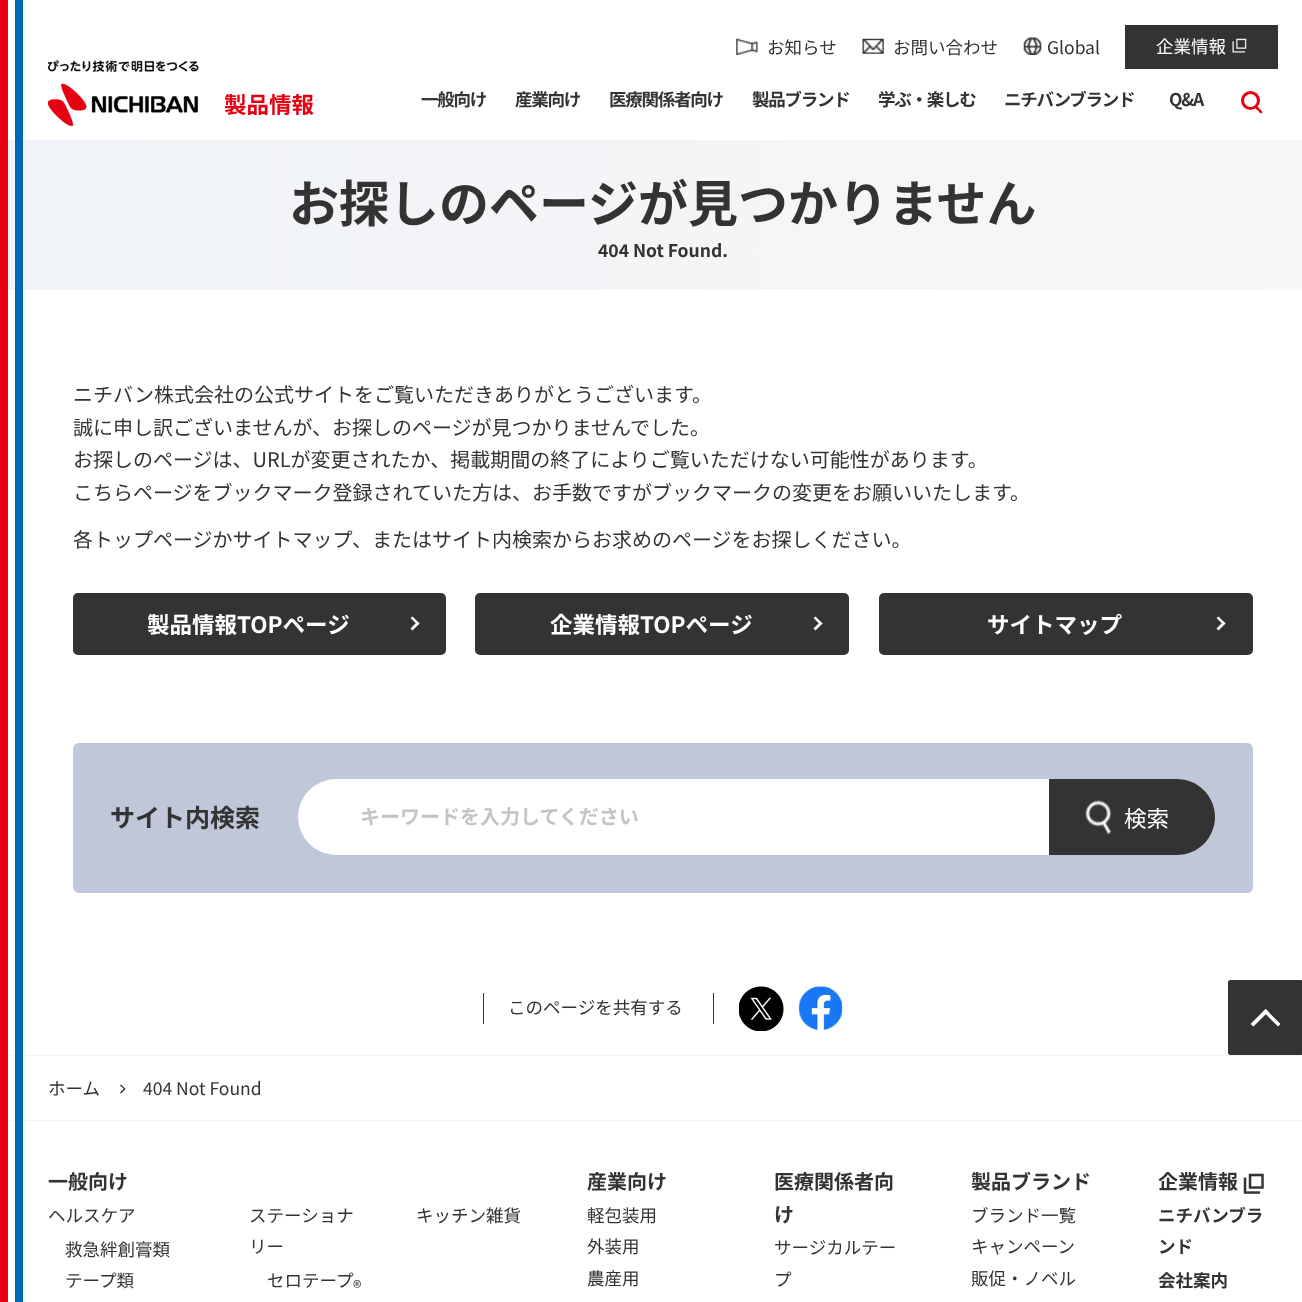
<svg xmlns="http://www.w3.org/2000/svg" width="1302" height="1302" viewBox="0 0 1302 1302">
  <defs>
    <linearGradient id="g1" gradientUnits="userSpaceOnUse" x1="0" y1="215" x2="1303" y2="215"><stop offset="0" stop-color="rgb(240,243,247)"/><stop offset="1" stop-color="rgb(247,247,247)"/></linearGradient>
  </defs>
  <rect width="100%" height="100%" fill="rgb(255,255,255)"/>
  <rect x="0" y="1055" width="1302" height="1" fill="rgb(244,244,244)"/>
  <rect x="0" y="1120" width="1302" height="1" fill="rgb(244,244,244)"/>
  <rect x="0" y="0" width="8" height="1302" fill="rgb(230,0,18)"/>
  <rect x="8" y="140" width="1294" height="150" fill="url(#g1)"/>
  <rect x="15" y="0" width="8" height="1302" fill="rgb(0,104,183)"/>
  <image x="48" y="60" width="151" height="66" href="pic1.png"/>
  <text x="224" y="113" font-family="Noto Sans JP" font-size="22.5" font-weight="bold" fill="rgb(230,0,18)">製品情報</text>
  <image x="736" y="38" width="22" height="17" href="pic2.png"/>
  <text x="767" y="54" font-family="Noto Sans JP" font-size="17.5" fill="rgb(51,51,51)">お知らせ</text>
  <image x="862" y="38" width="22" height="16" href="pic3.png"/>
  <text x="893" y="54" font-family="Noto Sans JP" font-size="17.5" fill="rgb(51,51,51)">お問い合わせ</text>
  <image x="1023" y="37" width="19" height="18" href="pic4.png"/>
  <text x="1047" y="54" font-family="Noto Sans JP" font-size="17.5" fill="rgb(51,51,51)">Global</text>
  <rect x="1125" y="25" width="153" height="44" fill="rgb(51,51,51)"/>
  <text x="1156" y="53" font-family="Noto Sans JP" font-size="17.5" fill="rgb(255,255,255)">企業情報</text>
  <image x="1232" y="38" width="15" height="15" href="pic5.png"/>
  <g font-family="Noto Sans JP" font-size="17.5" font-weight="bold" letter-spacing="-1.25" fill="rgb(51,51,51)">
    <text x="421" y="106">一般向け</text>
    <text x="515" y="106">産業向け</text>
    <text x="609" y="106">医療関係者向け</text>
    <text x="752" y="106">製品ブランド</text>
    <text x="878" y="106">学ぶ・楽しむ</text>
    <text x="1004" y="106">ニチバンブランド</text>
    <text x="1169" y="106">Q&amp;A</text>
  </g>
  <circle cx="1250.5" cy="100.5" r="8" fill="none" stroke="rgb(230,0,18)" stroke-width="3"/>
  <path d="M1255.5 106.5C1257 105 1259 108 1259.5 109C1260.5 109.5 1263 111.5 1262 113C1260.5 114 1258.5 111.5 1258 110.5C1257 110 1254.5 108 1255.5 106.5Z" fill="rgb(230,0,18)"/>
  <text x="289" y="222" font-family="Noto Sans JP" font-size="50" font-weight="bold" fill="rgb(51,51,51)">お探しのページが見つかりません</text>
  <text x="598" y="257" font-family="Noto Sans JP" font-size="17.5" font-weight="bold" fill="rgb(51,51,51)">404 Not Found.</text>
  <g font-family="Noto Sans JP" font-size="20" fill="rgb(51,51,51)">
    <text>
      <tspan x="73" y="402">ニチバン株式会社の公式サイトをご覧いただきありがとうございます。</tspan>
      <tspan x="73" y="435">誠に申し訳ございませんが、お探しのページが見つかりませんでした。</tspan>
      <tspan x="73" y="467">お探しのページは、URLが変更されたか、掲載期間の終了によりご覧いただけない可能性があります。</tspan>
      <tspan x="73" y="500">こちらページをブックマーク登録されていた方は、お手数ですがブックマークの変更をお願いいたします。</tspan>
    </text>
    <text x="73" y="547">各トップページかサイトマップ、またはサイト内検索からお求めのページをお探しください。</text>
  </g>
  <rect x="75" y="595" width="369" height="58" rx="3" fill="rgb(51,51,51)" stroke="rgb(51,51,51)" stroke-width="4"/>
  <text x="147" y="633" font-family="Noto Sans JP" font-size="22.5" font-weight="bold" fill="rgb(255,255,255)">製品情報TOPページ</text>
  <path d="M412.5 616.5L419.5 623.5L417.5 625L410.5 618Z" fill="rgb(255,255,255)"/>
  <path d="M417.5 621.5L419.5 623.5L412.5 630.5L410.5 628.5Z" fill="rgb(255,255,255)"/>
  <rect x="477" y="595" width="370" height="58" rx="3" fill="rgb(51,51,51)" stroke="rgb(51,51,51)" stroke-width="4"/>
  <text x="550" y="633" font-family="Noto Sans JP" font-size="22.5" font-weight="bold" fill="rgb(255,255,255)">企業情報TOPページ</text>
  <path d="M815.5 616.5L822.5 623.5L820.5 625L813.5 618Z" fill="rgb(255,255,255)"/>
  <path d="M820.5 621.5L822.5 623.5L815.5 630.5L813.5 628.5Z" fill="rgb(255,255,255)"/>
  <rect x="881" y="595" width="370" height="58" rx="3" fill="rgb(51,51,51)" stroke="rgb(51,51,51)" stroke-width="4"/>
  <text x="987" y="633" font-family="Noto Sans JP" font-size="22.5" font-weight="bold" fill="rgb(255,255,255)">サイトマップ</text>
  <path d="M1218.5 616.5L1225.5 623.5L1223.5 625L1216.5 618Z" fill="rgb(255,255,255)"/>
  <path d="M1223.5 621.5L1225.5 623.5L1218.5 630.5L1216.5 628.5Z" fill="rgb(255,255,255)"/>
  <rect x="73" y="743" width="1180" height="150" rx="6" fill="rgb(192,199,217)"/>
  <text x="110" y="827" font-family="Noto Sans JP" font-size="25" font-weight="bold" fill="rgb(51,51,51)">サイト内検索</text>
  <rect x="298" y="779" width="917" height="76" rx="38" fill="rgb(255,255,255)"/>
  <text x="360" y="824" font-family="Noto Sans JP" font-size="20" font-weight="bold" fill="rgb(196,196,196)">キーワードを入力してください</text>
  <path d="M1049 779H1177C1198 779 1215 796 1215 817C1215 838 1198 855 1177 855H1049Z" fill="rgb(51,51,51)"/>
  <image x="1085" y="800" width="27" height="35" href="pic6.png"/>
  <text x="1124" y="827" font-family="Noto Sans JP" font-size="22.5" fill="rgb(255,255,255)">検索</text>
  <rect x="483" y="993" width="1" height="31" fill="rgb(51,51,51)"/>
  <text x="508" y="1014" font-family="Noto Sans JP" font-size="17.5" fill="rgb(51,51,51)">このページを共有する</text>
  <rect x="713" y="993" width="1" height="31" fill="rgb(51,51,51)"/>
  <image x="739" y="986" width="45" height="45" href="pic7.png"/>
  <image x="799" y="986" width="44" height="44" href="pic8.png"/>
  <rect x="1228" y="980" width="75" height="75" rx="2.5" fill="rgb(51,51,51)"/>
  <path d="M1250.5 1024L1265.5 1009L1268.5 1011.5L1253.5 1026.5Z" fill="rgb(255,255,255)"/>
  <path d="M1263 1011.5L1265.5 1009L1280.5 1024L1278 1026.5Z" fill="rgb(255,255,255)"/>
  <text x="48" y="1095" font-family="Noto Sans JP" font-size="17.5" fill="rgb(51,51,51)">ホーム</text>
  <path d="M120 1092.5L124.5 1088L125.5 1089L121 1093.5Z" fill="rgb(51,51,51)"/>
  <path d="M124.5 1089.5L120 1085.5L121 1084.5L125.5 1089Z" fill="rgb(51,51,51)"/>
  <text x="143" y="1095" font-family="Noto Sans JP" font-size="17.5" fill="rgb(51,51,51)">404 Not Found</text>
  <text x="48" y="1189" font-family="Noto Sans JP" font-size="20" font-weight="bold" fill="rgb(51,51,51)">一般向け</text>
  <g font-family="Noto Sans JP" font-size="17.5" fill="rgb(51,51,51)">
    <text x="48" y="1222">ヘルスケア</text>
    <text>
      <tspan x="65" y="1256">救急絆創膏類</tspan>
      <tspan x="65" y="1287">テープ類</tspan>
    </text>
    <text>
      <tspan x="249" y="1222">ステーショナ</tspan>
      <tspan x="249" y="1253">リー</tspan>
    </text>
    <text x="267" y="1287">セロテープ</text>
    <text x="353" y="1294">®</text>
    <text x="416" y="1222">キッチン雑貨</text>
  </g>
  <text x="587" y="1189" font-family="Noto Sans JP" font-size="20" font-weight="bold" fill="rgb(51,51,51)">産業向け</text>
  <g font-family="Noto Sans JP" font-size="17.5" fill="rgb(51,51,51)">
    <text>
      <tspan x="587" y="1222">軽包装用</tspan>
      <tspan x="587" y="1253">外装用</tspan>
      <tspan x="587" y="1285">農産用</tspan>
    </text>
  </g>
  <g font-family="Noto Sans JP" font-size="20" font-weight="bold" fill="rgb(51,51,51)">
    <text>
      <tspan x="774" y="1189">医療関係者向</tspan>
      <tspan x="774" y="1222">け</tspan>
    </text>
  </g>
  <g font-family="Noto Sans JP" font-size="17.5" fill="rgb(51,51,51)">
    <text>
      <tspan x="774" y="1254">サージカルテー</tspan>
      <tspan x="774" y="1286">プ</tspan>
    </text>
  </g>
  <text x="971" y="1189" font-family="Noto Sans JP" font-size="20" font-weight="bold" fill="rgb(51,51,51)">製品ブランド</text>
  <g font-family="Noto Sans JP" font-size="17.5" fill="rgb(51,51,51)">
    <text>
      <tspan x="971" y="1222">ブランド一覧</tspan>
      <tspan x="971" y="1253">キャンペーン</tspan>
      <tspan x="971" y="1285">販促・ノベル</tspan>
    </text>
  </g>
  <text x="1158" y="1189" font-family="Noto Sans JP" font-size="20" font-weight="bold" fill="rgb(51,51,51)">企業情報</text>
  <image x="1243" y="1173" width="21" height="21" href="pic9.png"/>
  <g font-family="Noto Sans JP" font-size="17.5" font-weight="bold" fill="rgb(51,51,51)">
    <text>
      <tspan x="1158" y="1222">ニチバンブラ</tspan>
      <tspan x="1158" y="1253">ンド</tspan>
      <tspan x="1158" y="1287">会社案内</tspan>
    </text>
  </g>
</svg>
